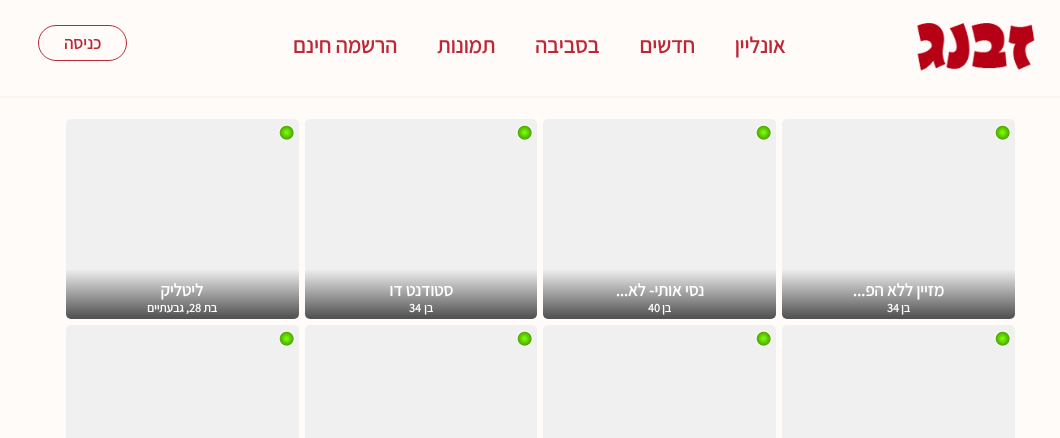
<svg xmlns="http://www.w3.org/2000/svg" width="1060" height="438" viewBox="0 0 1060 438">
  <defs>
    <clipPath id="clip1"><rect x="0" y="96" width="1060" height="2"/></clipPath>
    <linearGradient id="g1" gradientUnits="userSpaceOnUse" x1="899" y1="119" x2="899" y2="319"><stop offset="0" stop-color="rgb(0,0,0)" stop-opacity="0"/><stop offset="0.75" stop-color="rgb(0,0,0)" stop-opacity="0"/><stop offset="0.99" stop-color="rgb(0,0,0)" stop-opacity="0.65"/><stop offset="1" stop-color="rgb(0,0,0)" stop-opacity="0.65"/></linearGradient>
    <linearGradient id="g2" gradientUnits="userSpaceOnUse" x1="660" y1="119" x2="660" y2="319"><stop offset="0" stop-color="rgb(0,0,0)" stop-opacity="0"/><stop offset="0.75" stop-color="rgb(0,0,0)" stop-opacity="0"/><stop offset="0.99" stop-color="rgb(0,0,0)" stop-opacity="0.65"/><stop offset="1" stop-color="rgb(0,0,0)" stop-opacity="0.65"/></linearGradient>
    <linearGradient id="g3" gradientUnits="userSpaceOnUse" x1="421" y1="119" x2="421" y2="319"><stop offset="0" stop-color="rgb(0,0,0)" stop-opacity="0"/><stop offset="0.75" stop-color="rgb(0,0,0)" stop-opacity="0"/><stop offset="0.99" stop-color="rgb(0,0,0)" stop-opacity="0.65"/><stop offset="1" stop-color="rgb(0,0,0)" stop-opacity="0.65"/></linearGradient>
    <linearGradient id="g4" gradientUnits="userSpaceOnUse" x1="183" y1="119" x2="183" y2="319"><stop offset="0" stop-color="rgb(0,0,0)" stop-opacity="0"/><stop offset="0.75" stop-color="rgb(0,0,0)" stop-opacity="0"/><stop offset="0.99" stop-color="rgb(0,0,0)" stop-opacity="0.65"/><stop offset="1" stop-color="rgb(0,0,0)" stop-opacity="0.65"/></linearGradient>
  </defs>
  <rect width="100%" height="100%" fill="rgb(255,251,249)"/>
  <g clip-path="url(#clip1)">
    <rect x="-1" y="-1" width="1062" height="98" fill="rgba(136,68,0,0.07)" filter="blur(1.5px)"/>
  </g>
  <image x="916" y="23" width="119" height="48" href="pic1.png"/>
  <g font-family="Assistant" font-size="22" font-weight="bold" direction="rtl" fill="rgb(189,40,55)">
    <text x="785" y="53">אונליין</text>
    <text x="695" y="53">חדשים</text>
    <text x="599" y="53">בסביבה</text>
    <text x="495" y="53">תמונות</text>
    <text x="397" y="53">הרשמה חינם</text>
  </g>
  <rect x="38.5" y="25.5" width="88" height="35" rx="17.5" fill="none" stroke="rgb(189,40,55)"/>
  <text x="101" y="49" font-family="Assistant" font-size="17" font-weight="bold" direction="rtl" fill="rgb(189,40,55)">כניסה</text>
  <rect x="782" y="119" width="233" height="200" rx="5" fill="rgb(240,240,240)"/>
  <rect x="782" y="119" width="233" height="200" rx="5" fill="url(#g1)"/>
  <image x="994" y="124" width="17" height="17" href="pic2.png"/>
  <text x="944" y="296" font-family="Assistant" font-size="17" font-weight="bold" direction="rtl" fill="rgb(255,255,255)">מזיין ללא הפ...</text>
  <text x="910" y="312" font-family="Assistant" font-size="12" font-weight="bold" direction="rtl" fill="rgb(255,255,255)">בן</text>
  <text x="887" y="312" font-family="Assistant" font-size="12" font-weight="bold" fill="rgb(255,255,255)">34</text>
  <rect x="543" y="119" width="233" height="200" rx="5" fill="rgb(240,240,240)"/>
  <rect x="543" y="119" width="233" height="200" rx="5" fill="url(#g2)"/>
  <image x="755" y="124" width="17" height="17" href="pic2.png"/>
  <text x="704" y="296" font-family="Assistant" font-size="17" font-weight="bold" direction="rtl" fill="rgb(255,255,255)">נסי אותי- לא...</text>
  <text x="671" y="312" font-family="Assistant" font-size="12" font-weight="bold" direction="rtl" fill="rgb(255,255,255)">בן</text>
  <text x="648" y="312" font-family="Assistant" font-size="12" font-weight="bold" fill="rgb(255,255,255)">40</text>
  <rect x="305" y="119" width="232" height="200" rx="5" fill="rgb(240,240,240)"/>
  <rect x="305" y="119" width="232" height="200" rx="5" fill="url(#g3)"/>
  <image x="516" y="124" width="17" height="17" href="pic2.png"/>
  <text x="453" y="296" font-family="Assistant" font-size="17" font-weight="bold" direction="rtl" fill="rgb(255,255,255)">סטודנט דו</text>
  <text x="433" y="312" font-family="Assistant" font-size="12" font-weight="bold" direction="rtl" fill="rgb(255,255,255)">בן</text>
  <text x="409" y="312" font-family="Assistant" font-size="12" font-weight="bold" fill="rgb(255,255,255)">34</text>
  <rect x="66" y="119" width="233" height="200" rx="5" fill="rgb(240,240,240)"/>
  <rect x="66" y="119" width="233" height="200" rx="5" fill="url(#g4)"/>
  <image x="278" y="124" width="17" height="17" href="pic2.png"/>
  <text x="203" y="296" font-family="Assistant" font-size="17" font-weight="bold" direction="rtl" fill="rgb(255,255,255)">ליטליק</text>
  <text x="217" y="312" font-family="Assistant" font-size="12" font-weight="bold" direction="rtl" fill="rgb(255,255,255)">בת</text>
  <text x="189" y="312" font-family="Assistant" font-size="12" font-weight="bold" fill="rgb(255,255,255)">28</text>
  <text x="189" y="312" font-family="Assistant" font-size="12" font-weight="bold" direction="rtl" fill="rgb(255,255,255)">, גבעתיים</text>
  <rect x="782" y="325" width="233" height="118" rx="5" fill="rgb(240,240,240)"/>
  <image x="994" y="330" width="17" height="17" href="pic2.png"/>
  <rect x="543" y="325" width="233" height="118" rx="5" fill="rgb(240,240,240)"/>
  <image x="755" y="330" width="17" height="17" href="pic2.png"/>
  <rect x="305" y="325" width="232" height="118" rx="5" fill="rgb(240,240,240)"/>
  <image x="516" y="330" width="17" height="17" href="pic2.png"/>
  <rect x="66" y="325" width="233" height="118" rx="5" fill="rgb(240,240,240)"/>
  <image x="278" y="330" width="17" height="17" href="pic2.png"/>
</svg>
